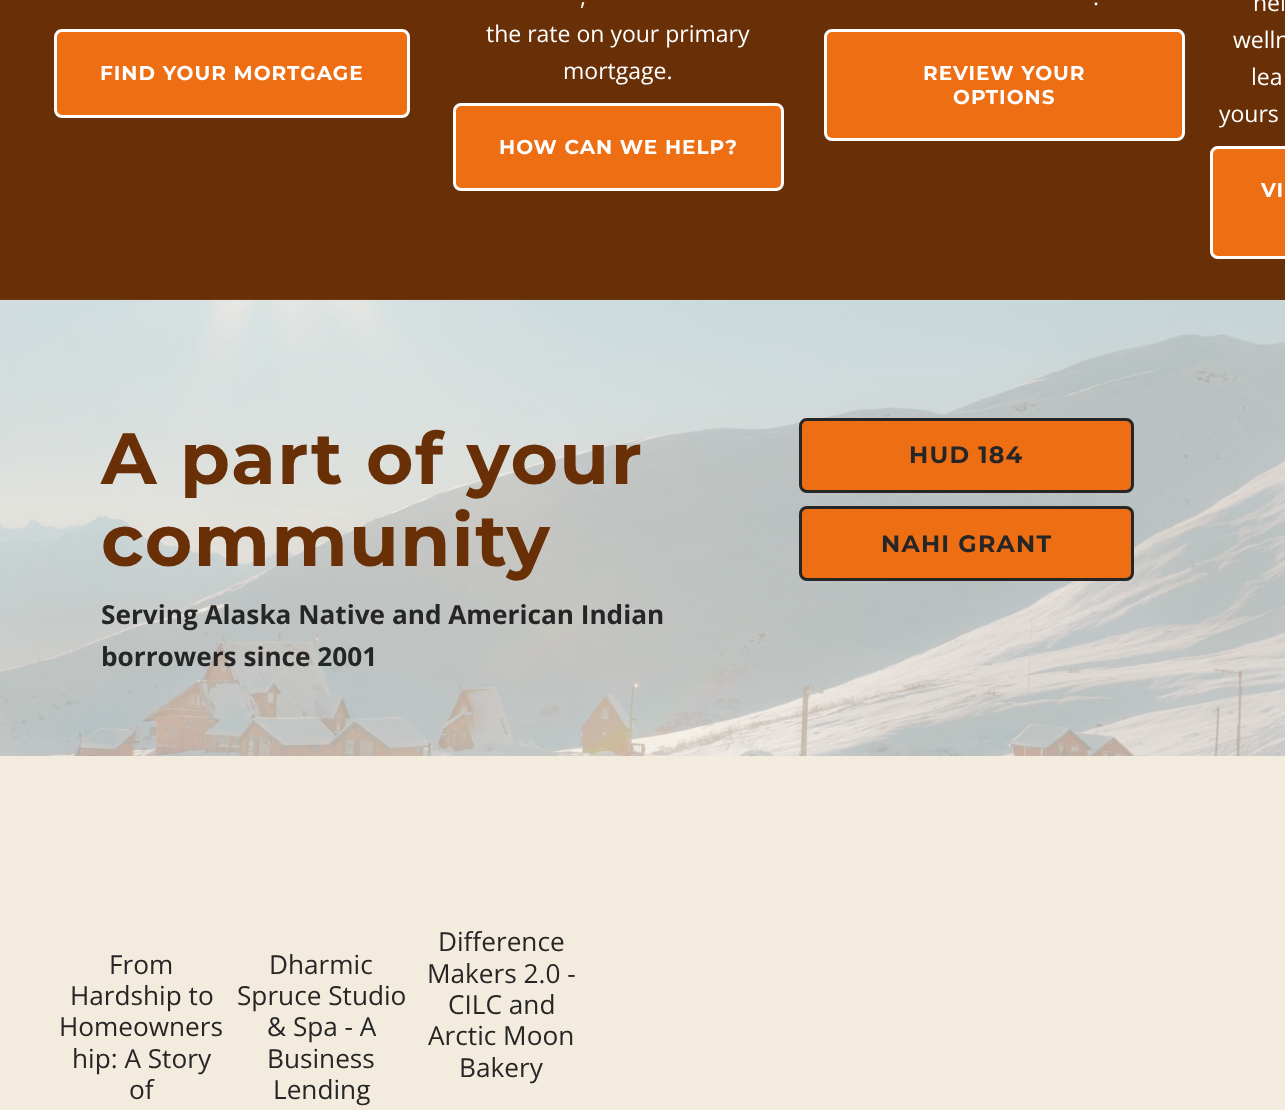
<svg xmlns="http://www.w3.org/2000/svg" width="1285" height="1110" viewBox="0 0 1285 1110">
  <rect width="100%" height="100%" fill="rgb(105,48,7)"/>
  <rect x="55.5" y="30.5" width="353" height="86" rx="6.5" fill="rgb(238,110,20)" stroke="rgb(255,255,255)" stroke-width="3"/>
  <text x="100" y="80" font-family="Montserrat" font-size="20" font-weight="100" letter-spacing="1" fill="rgb(255,255,255)">FIND YOUR MORTGAGE</text>
  <g font-family="Open Sans" font-size="23" fill="rgb(255,255,255)">
    <text x="580" y="5">,</text>
    <text x="486" y="42">the rate on your primary</text>
    <text x="563" y="79">mortgage.</text>
  </g>
  <rect x="454.5" y="104.5" width="328" height="85" rx="6.5" fill="rgb(238,110,20)" stroke="rgb(255,255,255)" stroke-width="3"/>
  <text x="499" y="154" font-family="Montserrat" font-size="20" font-weight="100" letter-spacing="1" fill="rgb(255,255,255)">HOW CAN WE HELP?</text>
  <text x="1093" y="5" font-family="Open Sans" font-size="23" fill="rgb(255,255,255)">.</text>
  <rect x="825.5" y="30.5" width="358" height="109" rx="6.5" fill="rgb(238,110,20)" stroke="rgb(255,255,255)" stroke-width="3"/>
  <g font-family="Montserrat" font-size="20" font-weight="100" letter-spacing="1" fill="rgb(255,255,255)">
    <text x="923" y="80">REVIEW YOUR</text>
    <text x="953" y="104">OPTIONS</text>
  </g>
  <g font-family="Open Sans" font-size="23" fill="rgb(255,255,255)">
    <text x="1253" y="11">hel</text>
    <text x="1233" y="48">welln</text>
    <text x="1251" y="85">lea</text>
    <text x="1219" y="122">yours</text>
  </g>
  <path d="M1218 146H1285V259H1218C1213.5 259 1210 255.5 1210 251V154C1210 149.5 1213.5 146 1218 146Z" fill="rgb(238,110,20)"/>
  <rect x="1211.5" y="147.5" width="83" height="110" rx="6.5" fill="none" stroke="rgb(255,255,255)" stroke-width="3"/>
  <text x="1261" y="197" font-family="Montserrat" font-size="20" font-weight="100" letter-spacing="1" fill="rgb(255,255,255)">VI</text>
  <image x="0" y="299" width="1285" height="457" href="pic1.png"/>
  <g font-family="Montserrat" font-size="72.5" font-weight="100" letter-spacing="1.5" fill="rgb(105,48,7)">
    <text>
      <tspan x="101" y="484">A part of your</tspan>
      <tspan x="101" y="566">community</tspan>
    </text>
  </g>
  <rect x="800.5" y="419.5" width="332" height="72" rx="6.5" fill="rgb(238,110,20)" stroke="rgb(38,38,38)" stroke-width="3"/>
  <text x="909" y="463" font-family="Montserrat" font-size="23.75" font-weight="100" letter-spacing="1.25" fill="rgb(38,38,38)">HUD 184</text>
  <rect x="800.5" y="507.5" width="332" height="72" rx="6.5" fill="rgb(238,110,20)" stroke="rgb(38,38,38)" stroke-width="3"/>
  <text x="881" y="552" font-family="Montserrat" font-size="23.75" font-weight="100" letter-spacing="1.25" fill="rgb(38,38,38)">NAHI GRANT</text>
  <g font-family="Open Sans" font-size="26.2" font-weight="bold" fill="rgb(38,38,38)">
    <text>
      <tspan x="101" y="624">Serving Alaska Native and American Indian</tspan>
      <tspan x="101" y="666">borrowers since 2001</tspan>
    </text>
  </g>
  <rect x="0" y="756" width="1285" height="354" fill="rgb(243,236,222)"/>
  <g font-family="Open Sans" font-size="26.2" fill="rgb(38,38,38)">
    <text x="109" y="974">From</text>
    <text x="70" y="1005">Hardship to</text>
    <text x="59" y="1036">Homeowners</text>
    <text x="72" y="1068">hip: A Story</text>
    <text x="129" y="1099">of</text>
    <text x="269" y="974">Dharmic</text>
    <text x="237" y="1005">Spruce Studio</text>
    <text>
      <tspan x="267" y="1036">&amp; Spa - A</tspan>
      <tspan x="267" y="1068">Business</tspan>
    </text>
    <text x="273" y="1099">Lending</text>
    <text x="438" y="951">Difference</text>
    <text x="427" y="983">Makers 2.0 -</text>
    <text x="448" y="1014">CILC and</text>
    <text x="428" y="1045">Arctic Moon</text>
    <text x="459" y="1077">Bakery</text>
  </g>
</svg>
